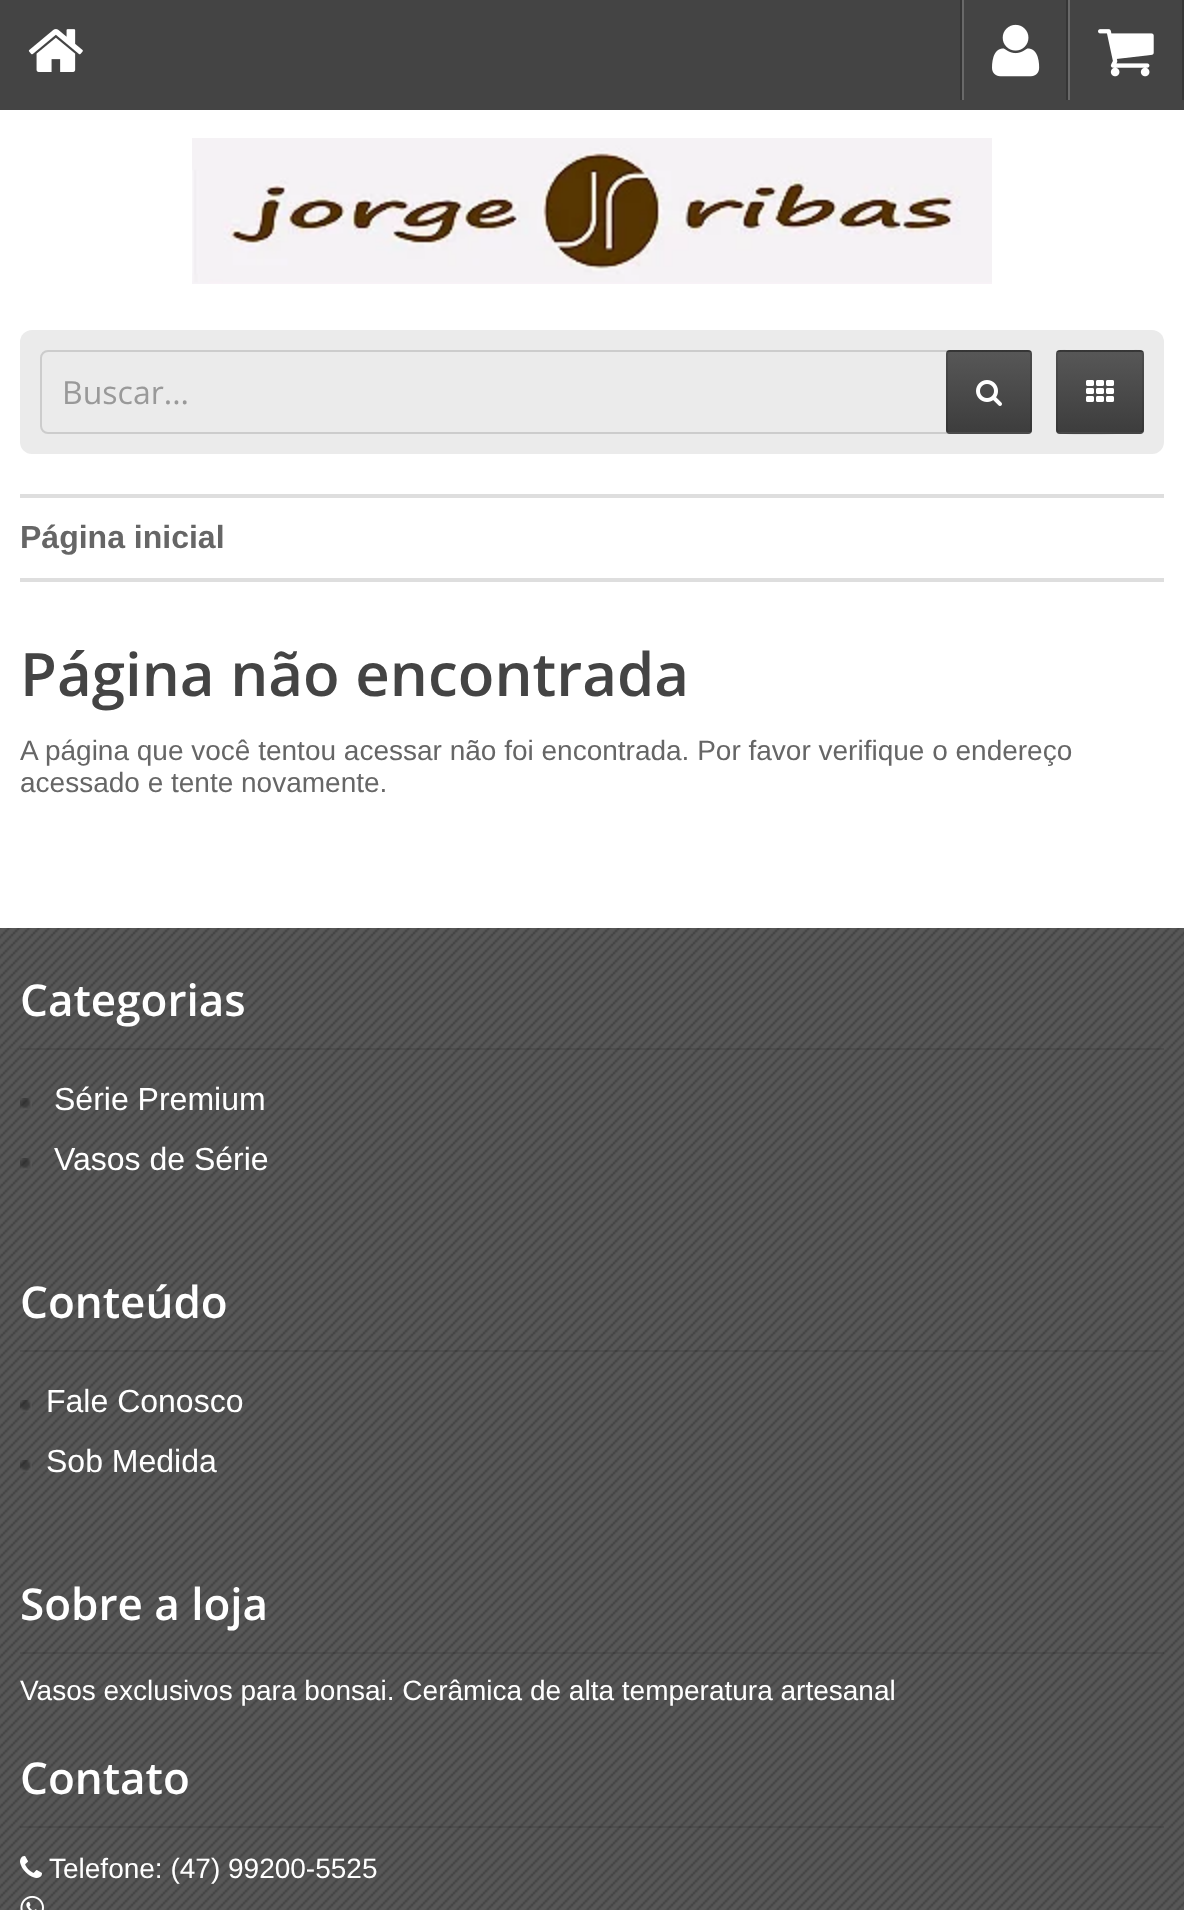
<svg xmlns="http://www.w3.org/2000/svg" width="1184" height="1910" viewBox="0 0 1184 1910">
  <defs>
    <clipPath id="clip1"><rect x="946" y="350" width="86" height="84" rx="4"/></clipPath>
    <linearGradient id="g1" gradientUnits="userSpaceOnUse" x1="989" y1="272" x2="989" y2="352"><stop offset="0" stop-color="rgb(255,255,255)" stop-opacity="0.1"/><stop offset="1" stop-color="rgb(0,0,0)" stop-opacity="0.1"/></linearGradient>
    <linearGradient id="g2" gradientUnits="userSpaceOnUse" x1="989" y1="352" x2="989" y2="432"><stop offset="0" stop-color="rgb(255,255,255)" stop-opacity="0.1"/><stop offset="1" stop-color="rgb(0,0,0)" stop-opacity="0.1"/></linearGradient>
    <linearGradient id="g3" gradientUnits="userSpaceOnUse" x1="989" y1="432" x2="989" y2="512"><stop offset="0" stop-color="rgb(255,255,255)" stop-opacity="0.1"/><stop offset="1" stop-color="rgb(0,0,0)" stop-opacity="0.1"/></linearGradient>
    <clipPath id="clip2"><rect x="1056" y="350" width="88" height="84" rx="4"/></clipPath>
    <linearGradient id="g4" gradientUnits="userSpaceOnUse" x1="1100" y1="272" x2="1100" y2="352"><stop offset="0" stop-color="rgb(255,255,255)" stop-opacity="0.1"/><stop offset="1" stop-color="rgb(0,0,0)" stop-opacity="0.1"/></linearGradient>
    <linearGradient id="g5" gradientUnits="userSpaceOnUse" x1="1100" y1="352" x2="1100" y2="432"><stop offset="0" stop-color="rgb(255,255,255)" stop-opacity="0.1"/><stop offset="1" stop-color="rgb(0,0,0)" stop-opacity="0.1"/></linearGradient>
    <linearGradient id="g6" gradientUnits="userSpaceOnUse" x1="1100" y1="432" x2="1100" y2="512"><stop offset="0" stop-color="rgb(255,255,255)" stop-opacity="0.1"/><stop offset="1" stop-color="rgb(0,0,0)" stop-opacity="0.1"/></linearGradient>
  </defs>
  <rect width="100%" height="100%" fill="rgb(255,255,255)"/>
  <rect x="0" y="0" width="1182" height="100" fill="rgb(68,68,68)"/>
  <rect x="0" y="100" width="1184" height="10" fill="rgb(68,68,68)"/>
  <image x="28" y="29" width="55" height="43" href="pic1.png"/>
  <rect x="960" y="0" width="2" height="100" fill="rgb(54,54,54)"/>
  <rect x="1066" y="0" width="2" height="100" fill="rgb(54,54,54)"/>
  <rect x="962" y="0" width="2" height="100" fill="rgb(105,105,105)"/>
  <image x="992" y="24" width="48" height="53" href="pic2.png"/>
  <rect x="1182" y="0" width="2" height="100" fill="rgb(54,54,54)"/>
  <rect x="1068" y="0" width="2" height="100" fill="rgb(105,105,105)"/>
  <image x="1098" y="29" width="56" height="48" href="pic3.png"/>
  <image x="192" y="138" width="800" height="146" href="pic4.png"/>
  <rect x="20" y="330" width="1144" height="124" rx="12" fill="rgb(235,235,235)"/>
  <rect x="41" y="351" width="938" height="82" rx="7" fill="none" stroke="rgb(204,204,204)" stroke-width="2"/>
  <text x="62" y="404" font-family="Open Sans" font-size="32" fill="rgb(153,153,153)">Buscar...</text>
  <rect x="946" y="350" width="86" height="84" rx="4" fill="rgb(68,68,68)"/>
  <g clip-path="url(#clip1)">
    <rect x="946" y="350" width="86" height="2" fill="url(#g1)"/>
  </g>
  <rect x="946" y="352" width="86" height="80" fill="url(#g2)"/>
  <g clip-path="url(#clip1)">
    <rect x="946" y="432" width="86" height="2" fill="url(#g3)"/>
  </g>
  <rect x="947" y="351" width="84" height="82" rx="3" fill="none" stroke="rgba(0,0,0,0.13)" stroke-width="2"/>
  <image x="976" y="380" width="26" height="26" href="pic5.png"/>
  <rect x="1056" y="350" width="88" height="84" rx="4" fill="rgb(68,68,68)"/>
  <g clip-path="url(#clip2)">
    <rect x="1056" y="350" width="88" height="2" fill="url(#g4)"/>
  </g>
  <rect x="1056" y="352" width="88" height="80" fill="url(#g5)"/>
  <g clip-path="url(#clip2)">
    <rect x="1056" y="432" width="88" height="2" fill="url(#g6)"/>
  </g>
  <path d="M1142 432L1140 433H1126.5C1119 433 1060 434 1058 432.5V432" fill="none" stroke="rgba(0,0,0,0.2)" stroke-width="2"/>
  <path d="M1058 432L1057 430V366.5C1057 348 1054 351 1073.5 351H1126.5C1146 351 1143 348 1143 366.5V430L1142 432" fill="none" stroke="rgba(0,0,0,0.1)" stroke-width="2"/>
  <image x="1086" y="380" width="28" height="22" href="pic6.png"/>
  <rect x="20" y="494" width="1144" height="4" fill="rgb(222,222,222)"/>
  <rect x="20" y="578" width="1144" height="4" fill="rgb(222,222,222)"/>
  <text x="20" y="548" font-family="Liberation Sans" font-size="32" font-weight="bold" fill="rgb(102,102,102)">Página inicial</text>
  <text x="20" y="696" font-family="Open Sans" font-size="60" font-weight="600" fill="rgb(68,68,68)">Página não encontrada</text>
  <g font-family="Liberation Sans" font-size="28" fill="rgb(102,102,102)">
    <text>
      <tspan x="20" y="760">A página que você tentou acessar não foi encontrada. Por favor verifique o endereço</tspan>
      <tspan x="20" y="792">acessado e tente novamente.</tspan>
    </text>
  </g>
  <rect x="0" y="928" width="1184" height="982" fill="rgb(68,68,68)"/>
  <image x="0" y="928" width="1184" height="982" href="pic7.png"/>
  <rect x="20" y="1048" width="1144" height="2" fill="rgba(0,0,0,0.1)"/>
  <text x="20" y="1016" font-family="Open Sans" font-size="44" font-weight="600" fill="rgb(255,255,255)">Categorias</text>
  <image x="20" y="1098" width="12" height="12" href="pic8.png"/>
  <text x="54" y="1110" font-family="Liberation Sans" font-size="32" fill="rgb(255,255,255)">Série Premium</text>
  <image x="20" y="1158" width="12" height="12" href="pic8.png"/>
  <text x="54" y="1170" font-family="Liberation Sans" font-size="32" fill="rgb(255,255,255)">Vasos de Série</text>
  <rect x="20" y="1350" width="1144" height="2" fill="rgba(0,0,0,0.1)"/>
  <text x="20" y="1318" font-family="Open Sans" font-size="44" font-weight="600" fill="rgb(255,255,255)">Conteúdo</text>
  <image x="20" y="1400" width="12" height="12" href="pic9.png"/>
  <text x="46" y="1412" font-family="Liberation Sans" font-size="32" fill="rgb(255,255,255)">Fale Conosco</text>
  <image x="20" y="1460" width="12" height="12" href="pic9.png"/>
  <text x="46" y="1472" font-family="Liberation Sans" font-size="32" fill="rgb(255,255,255)">Sob Medida</text>
  <rect x="20" y="1652" width="1144" height="2" fill="rgba(0,0,0,0.1)"/>
  <text x="20" y="1620" font-family="Open Sans" font-size="44" font-weight="600" fill="rgb(255,255,255)">Sobre a loja</text>
  <text x="20" y="1700" font-family="Liberation Sans" font-size="28" fill="rgb(255,255,255)">Vasos exclusivos para bonsai. Cerâmica de alta temperatura artesanal</text>
  <rect x="20" y="1826" width="1144" height="2" fill="rgba(0,0,0,0.1)"/>
  <text x="20" y="1794" font-family="Open Sans" font-size="44" font-weight="600" fill="rgb(255,255,255)">Contato</text>
  <image x="20" y="1856" width="22" height="22" href="pic10.png"/>
  <text x="49" y="1878" font-family="Liberation Sans" font-size="28" fill="rgb(255,255,255)">Telefone: (47) 99200-5525</text>
  <image x="20" y="1895" width="24" height="15" href="pic11.png"/>
</svg>
